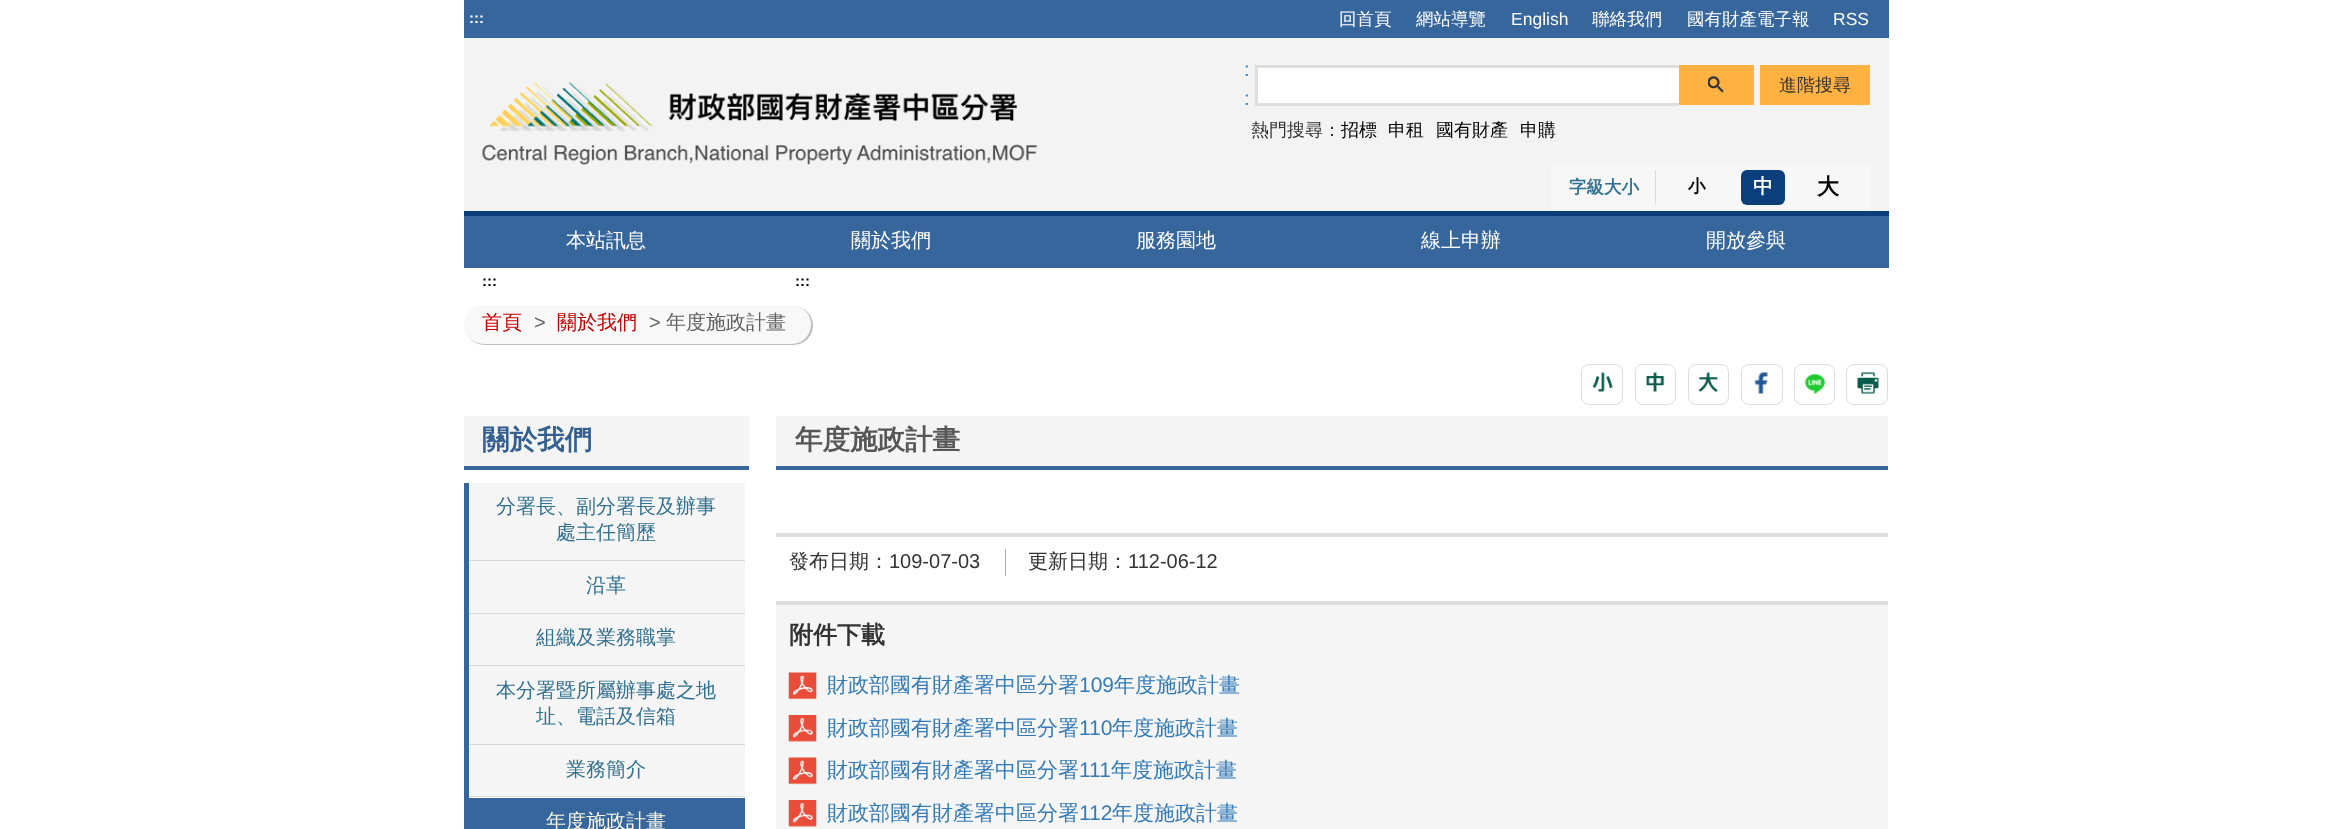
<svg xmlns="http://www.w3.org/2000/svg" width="2351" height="829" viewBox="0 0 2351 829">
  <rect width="100%" height="100%" fill="rgb(255,255,255)"/>
  <rect x="464" y="0" width="1425" height="38" fill="rgb(54,102,156)"/>
  <text x="469" y="23" font-family="Liberation Sans" font-size="15" font-weight="bold" fill="rgb(255,255,255)">:::</text>
  <g font-family="WenQuanYi Zen Hei" font-size="17.5" font-weight="500" fill="rgb(255,255,255)">
    <text x="1339" y="25">回首頁</text>
    <text x="1416" y="25">網站導覽</text>
  </g>
  <text x="1511" y="25" font-family="Liberation Sans" font-size="17.5" fill="rgb(255,255,255)">English</text>
  <g font-family="WenQuanYi Zen Hei" font-size="17.5" font-weight="500" fill="rgb(255,255,255)">
    <text x="1592" y="25">聯絡我們</text>
    <text x="1687" y="25">國有財產電子報</text>
  </g>
  <text x="1833" y="25" font-family="Liberation Sans" font-size="17.5" fill="rgb(255,255,255)">RSS</text>
  <rect x="464" y="38" width="1425" height="173" fill="rgb(243,243,243)"/>
  <rect x="464" y="211" width="1425" height="5" fill="rgb(10,63,123)"/>
  <image x="482" y="82" width="556" height="83" href="pic1.png"/>
  <g font-family="Liberation Sans" font-size="20" fill="rgb(51,122,183)">
    <text>
      <tspan x="1244" y="76">:</tspan>
      <tspan x="1244" y="105">:</tspan>
    </text>
  </g>
  <rect x="1258" y="68" width="421" height="35" fill="rgb(255,255,255)"/>
  <rect x="1255" y="65" width="424" height="3" fill="rgb(221,221,221)"/>
  <rect x="1255" y="103" width="424" height="3" fill="rgb(221,221,221)"/>
  <rect x="1255" y="65" width="3" height="40" fill="rgb(221,221,221)"/>
  <rect x="1679" y="65" width="75" height="40" fill="rgb(255,177,65)"/>
  <image x="1708" y="76" width="16" height="17" href="pic2.png"/>
  <rect x="1760" y="65" width="110" height="40" fill="rgb(255,177,65)"/>
  <g font-family="WenQuanYi Zen Hei" font-size="18" font-weight="500" fill="rgb(51,51,51)">
    <text x="1779" y="91">進階搜尋</text>
    <text x="1251" y="136">熱門搜尋：</text>
  </g>
  <g font-family="WenQuanYi Zen Hei" font-size="18" font-weight="500" fill="rgb(0,0,0)">
    <text x="1341" y="136">招標</text>
    <text x="1388" y="136">申租</text>
    <text x="1436" y="136">國有財產</text>
    <text x="1520" y="136">申購</text>
  </g>
  <rect x="1551" y="164" width="319" height="47" fill="rgb(247,247,247)"/>
  <rect x="1655" y="170" width="1" height="35" fill="rgb(221,221,221)"/>
  <text x="1569" y="193" font-family="WenQuanYi Zen Hei" font-size="17.5" font-weight="bold" fill="rgb(49,112,143)">字級大小</text>
  <text x="1688" y="192" font-family="WenQuanYi Zen Hei" font-size="17.5" font-weight="bold" fill="rgb(0,0,0)">小</text>
  <rect x="1741" y="170" width="44" height="35" rx="6" fill="rgb(10,63,123)"/>
  <text x="1753" y="193" font-family="WenQuanYi Zen Hei" font-size="20" font-weight="bold" fill="rgb(255,255,255)">中</text>
  <text x="1817" y="194" font-family="WenQuanYi Zen Hei" font-size="22" font-weight="bold" fill="rgb(0,0,0)">大</text>
  <rect x="464" y="216" width="1425" height="52" fill="rgb(54,102,156)"/>
  <g font-family="WenQuanYi Zen Hei" font-size="20" font-weight="500" fill="rgb(255,255,255)">
    <text x="566" y="247">本站訊息</text>
    <text x="851" y="247">關於我們</text>
    <text x="1136" y="247">服務園地</text>
    <text x="1421" y="247">線上申辦</text>
    <text x="1706" y="247">開放參與</text>
  </g>
  <text x="482" y="286" font-family="Liberation Sans" font-size="15" font-weight="bold" fill="rgb(0,0,0)">:::</text>
  <rect x="464" y="416" width="285" height="50" fill="rgb(244,244,244)"/>
  <rect x="464" y="466" width="285" height="4" fill="rgb(54,102,156)"/>
  <text x="482" y="449" font-family="WenQuanYi Zen Hei" font-size="27.5" font-weight="bold" fill="rgb(52,95,143)">關於我們</text>
  <rect x="464" y="483" width="5" height="346" fill="rgb(54,102,156)"/>
  <rect x="469" y="483" width="276" height="77" fill="rgb(245,245,245)"/>
  <g font-family="WenQuanYi Zen Hei" font-size="20" font-weight="500" fill="rgb(49,112,143)">
    <text x="496" y="513">分署長、副分署長及辦事</text>
    <text x="556" y="539">處主任簡歷</text>
  </g>
  <rect x="469" y="560" width="276" height="1" fill="rgb(216,216,216)"/>
  <rect x="469" y="561" width="276" height="52" fill="rgb(245,245,245)"/>
  <text x="586" y="592" font-family="WenQuanYi Zen Hei" font-size="20" font-weight="500" fill="rgb(49,112,143)">沿革</text>
  <rect x="469" y="613" width="276" height="1" fill="rgb(216,216,216)"/>
  <rect x="469" y="614" width="276" height="51" fill="rgb(245,245,245)"/>
  <text x="536" y="644" font-family="WenQuanYi Zen Hei" font-size="20" font-weight="500" fill="rgb(49,112,143)">組織及業務職掌</text>
  <rect x="469" y="665" width="276" height="1" fill="rgb(216,216,216)"/>
  <rect x="469" y="666" width="276" height="78" fill="rgb(245,245,245)"/>
  <g font-family="WenQuanYi Zen Hei" font-size="20" font-weight="500" fill="rgb(49,112,143)">
    <text x="496" y="697">本分署暨所屬辦事處之地</text>
    <text x="536" y="723">址、電話及信箱</text>
  </g>
  <rect x="469" y="744" width="276" height="1" fill="rgb(216,216,216)"/>
  <rect x="469" y="745" width="276" height="51" fill="rgb(245,245,245)"/>
  <text x="566" y="776" font-family="WenQuanYi Zen Hei" font-size="20" font-weight="500" fill="rgb(49,112,143)">業務簡介</text>
  <rect x="469" y="796" width="276" height="1" fill="rgb(216,216,216)"/>
  <rect x="469" y="798" width="276" height="31" fill="rgb(54,102,156)"/>
  <text x="546" y="828" font-family="WenQuanYi Zen Hei" font-size="20" font-weight="500" fill="rgb(248,246,231)">年度施政計畫</text>
  <text x="795" y="286" font-family="Liberation Sans" font-size="15" font-weight="bold" fill="rgb(0,0,0)">:::</text>
  <rect x="1581.5" y="364.5" width="41" height="40" rx="7.5" fill="none" stroke="rgb(221,221,221)"/>
  <image x="1592" y="372" width="21" height="20" href="pic3.png"/>
  <rect x="1635.5" y="364.5" width="40" height="40" rx="7.5" fill="none" stroke="rgb(221,221,221)"/>
  <image x="1645" y="372" width="20" height="20" href="pic4.png"/>
  <rect x="1688.5" y="364.5" width="40" height="40" rx="7.5" fill="none" stroke="rgb(221,221,221)"/>
  <image x="1698" y="372" width="20" height="20" href="pic5.png"/>
  <rect x="1741.5" y="364.5" width="41" height="40" rx="7.5" fill="none" stroke="rgb(221,221,221)"/>
  <image x="1754" y="372" width="14" height="22" href="pic6.png"/>
  <rect x="1794.5" y="364.5" width="40" height="40" rx="7.5" fill="none" stroke="rgb(221,221,221)"/>
  <image x="1804" y="374" width="21" height="20" href="pic7.png"/>
  <rect x="1846.5" y="364.5" width="41" height="40" rx="7.5" fill="none" stroke="rgb(221,221,221)"/>
  <image x="1857" y="372" width="22" height="22" href="pic8.png"/>
  <rect x="776" y="416" width="1112" height="50" fill="rgb(244,244,244)"/>
  <rect x="776" y="466" width="1112" height="4" fill="rgb(54,102,156)"/>
  <text x="795" y="449" font-family="WenQuanYi Zen Hei" font-size="27.5" font-weight="bold" fill="rgb(87,87,87)">年度施政計畫</text>
  <rect x="776" y="533" width="1112" height="4" fill="rgb(221,221,221)"/>
  <text x="789" y="568" font-family="WenQuanYi Zen Hei" font-size="20" font-weight="500" fill="rgb(51,51,51)">發布日期：</text>
  <text x="889" y="568" font-family="Liberation Sans" font-size="20" fill="rgb(51,51,51)">109-07-03</text>
  <rect x="1005" y="549" width="1" height="27" fill="rgb(177,177,177)"/>
  <text x="1028" y="568" font-family="WenQuanYi Zen Hei" font-size="20" font-weight="500" fill="rgb(51,51,51)">更新日期：</text>
  <text x="1128" y="568" font-family="Liberation Sans" font-size="20" fill="rgb(51,51,51)">112-06-12</text>
  <rect x="776" y="605" width="1112" height="224" fill="rgb(245,245,245)"/>
  <rect x="776" y="601" width="1112" height="4" fill="rgb(221,221,221)"/>
  <text x="789" y="643" font-family="WenQuanYi Zen Hei" font-size="24" font-weight="bold" fill="rgb(51,51,51)">附件下載</text>
  <image x="788" y="672" width="29" height="28" href="pic9.png"/>
  <text x="827" y="692" font-family="WenQuanYi Zen Hei" font-size="21" font-weight="500" fill="rgb(51,122,183)">財政部國有財產署中區分署</text>
  <text x="1079" y="692" font-family="Liberation Sans" font-size="21" fill="rgb(51,122,183)">109</text>
  <text x="1114" y="692" font-family="WenQuanYi Zen Hei" font-size="21" font-weight="500" fill="rgb(51,122,183)">年度施政計畫</text>
  <image x="788" y="715" width="29" height="27" href="pic10.png"/>
  <text x="827" y="735" font-family="WenQuanYi Zen Hei" font-size="21" font-weight="500" fill="rgb(51,122,183)">財政部國有財產署中區分署</text>
  <text x="1079" y="735" font-family="Liberation Sans" font-size="21" fill="rgb(51,122,183)">110</text>
  <text x="1112" y="735" font-family="WenQuanYi Zen Hei" font-size="21" font-weight="500" fill="rgb(51,122,183)">年度施政計畫</text>
  <image x="788" y="757" width="29" height="28" href="pic9.png"/>
  <text x="827" y="777" font-family="WenQuanYi Zen Hei" font-size="21" font-weight="500" fill="rgb(51,122,183)">財政部國有財產署中區分署</text>
  <text x="1079" y="777" font-family="Liberation Sans" font-size="21" fill="rgb(51,122,183)">111</text>
  <text x="1111" y="777" font-family="WenQuanYi Zen Hei" font-size="21" font-weight="500" fill="rgb(51,122,183)">年度施政計畫</text>
  <image x="788" y="800" width="29" height="27" href="pic10.png"/>
  <text x="827" y="820" font-family="WenQuanYi Zen Hei" font-size="21" font-weight="500" fill="rgb(51,122,183)">財政部國有財產署中區分署</text>
  <text x="1079" y="820" font-family="Liberation Sans" font-size="21" fill="rgb(51,122,183)">112</text>
  <text x="1112" y="820" font-family="WenQuanYi Zen Hei" font-size="21" font-weight="500" fill="rgb(51,122,183)">年度施政計畫</text>
  <rect x="465" y="306" width="348" height="39" rx="19.5" fill="rgb(193,190,190)" filter="blur(0.5px)"/>
  <rect x="464" y="305" width="347" height="39" rx="19.5" fill="rgb(248,248,248)"/>
  <text x="482" y="329" font-family="WenQuanYi Zen Hei" font-size="20" font-weight="500" fill="rgb(197,0,0)">首頁</text>
  <text x="534" y="329" font-family="Liberation Sans" font-size="20" fill="rgb(98,98,98)">&gt;</text>
  <text x="557" y="329" font-family="WenQuanYi Zen Hei" font-size="20" font-weight="500" fill="rgb(197,0,0)">關於我們</text>
  <text x="649" y="329" font-family="Liberation Sans" font-size="20" fill="rgb(98,98,98)">&gt;</text>
  <text x="666" y="329" font-family="WenQuanYi Zen Hei" font-size="20" font-weight="500" fill="rgb(98,98,98)">年度施政計畫</text>
</svg>
